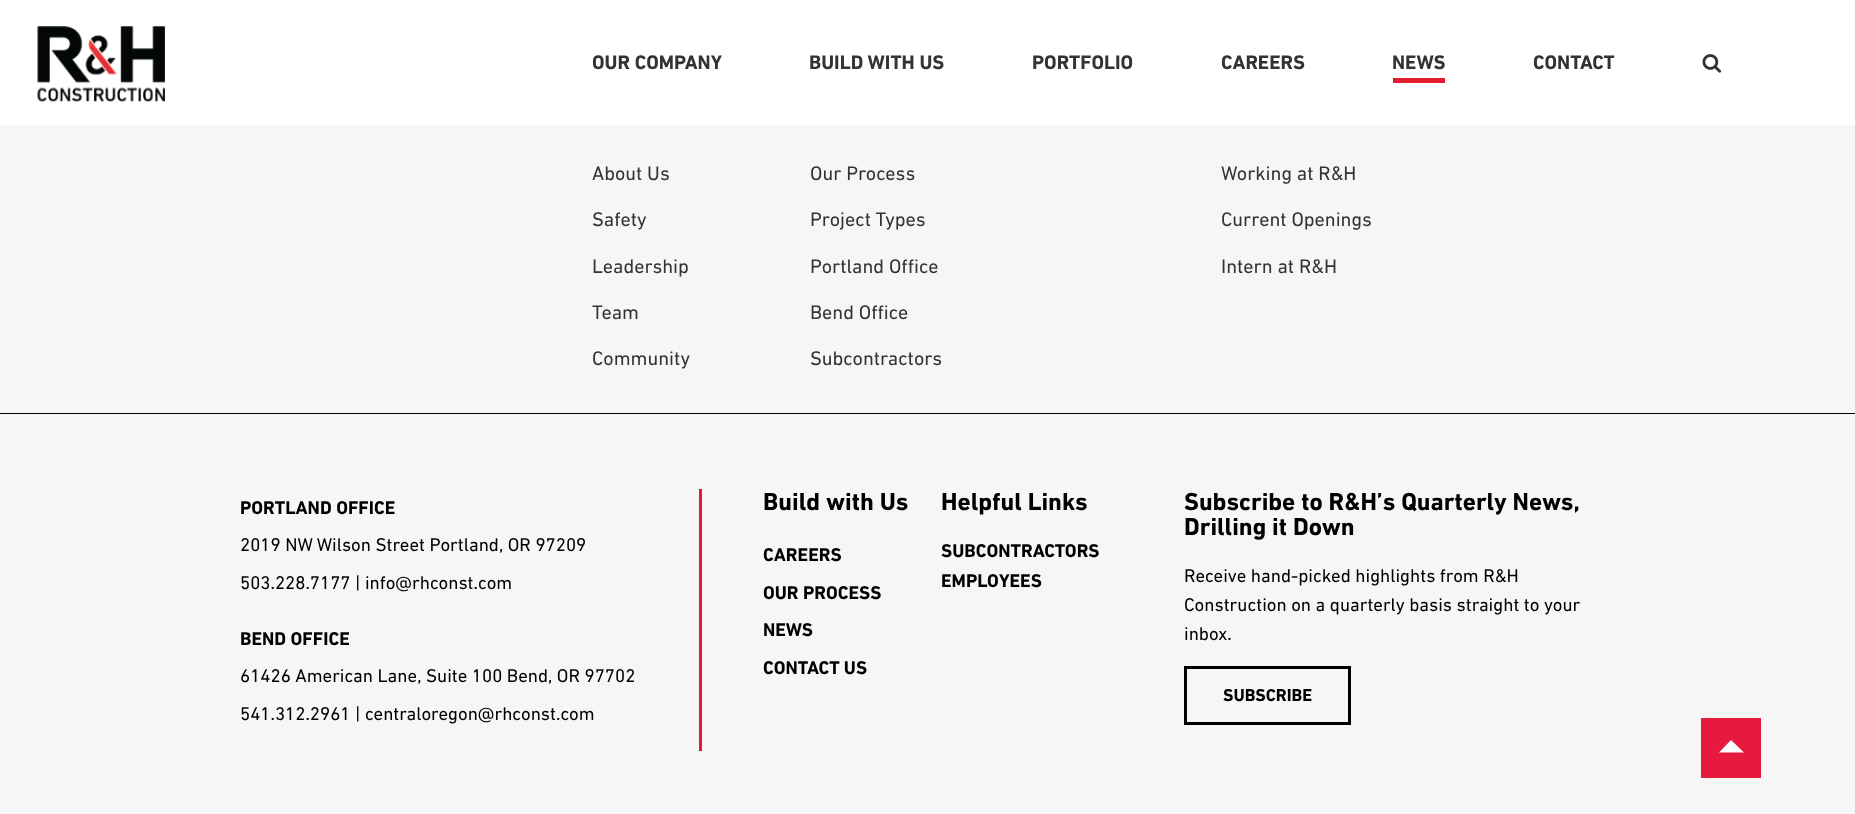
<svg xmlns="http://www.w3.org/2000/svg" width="1855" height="814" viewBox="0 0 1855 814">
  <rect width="100%" height="100%" fill="rgb(0,0,0)"/>
  <rect x="0" y="0" width="1855" height="125" fill="rgb(255,255,255)"/>
  <image x="37" y="26" width="128" height="76" href="pic1.png"/>
  <text x="592" y="69" font-family="'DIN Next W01'" font-size="20" font-weight="bold" fill="rgb(51,51,51)">OUR COMPANY</text>
  <rect x="0" y="125" width="1855" height="288" fill="rgb(246,246,246)"/>
  <g font-family="'DIN Next W01'" font-size="20" fill="rgb(51,51,51)">
    <text x="592" y="180">About Us</text>
    <text x="592" y="226">Safety</text>
    <text x="592" y="273">Leadership</text>
    <text x="592" y="319">Team</text>
    <text x="592" y="365">Community</text>
  </g>
  <text x="809" y="69" font-family="'DIN Next W01'" font-size="20" font-weight="bold" fill="rgb(51,51,51)">BUILD WITH US</text>
  <g font-family="'DIN Next W01'" font-size="20" fill="rgb(51,51,51)">
    <text x="810" y="180">Our Process</text>
    <text x="810" y="226">Project Types</text>
    <text x="810" y="273">Portland Office</text>
    <text x="810" y="319">Bend Office</text>
    <text x="810" y="365">Subcontractors</text>
  </g>
  <g font-family="'DIN Next W01'" font-size="20" font-weight="bold" fill="rgb(51,51,51)">
    <text x="1032" y="69">PORTFOLIO</text>
    <text x="1221" y="69">CAREERS</text>
  </g>
  <g font-family="'DIN Next W01'" font-size="20" fill="rgb(51,51,51)">
    <text x="1221" y="180">Working at R&amp;H</text>
    <text x="1221" y="226">Current Openings</text>
    <text x="1221" y="273">Intern at R&amp;H</text>
  </g>
  <text x="1392" y="69" font-family="'DIN Next W01'" font-size="20" font-weight="bold" fill="rgb(51,51,51)">NEWS</text>
  <rect x="1393" y="78" width="52" height="5" fill="rgb(228,30,45)"/>
  <text x="1533" y="69" font-family="'DIN Next W01'" font-size="20" font-weight="bold" fill="rgb(51,51,51)">CONTACT</text>
  <image x="1702" y="54" width="20" height="19" href="pic2.png"/>
  <rect x="0" y="414" width="1855" height="400" fill="rgb(246,246,246)"/>
  <text x="240" y="514" font-family="'DIN Next W01'" font-size="18.75" font-weight="bold" fill="rgb(0,0,0)">PORTLAND OFFICE</text>
  <g font-family="'DIN Next W01'" font-size="18.75" fill="rgb(0,0,0)">
    <text x="240" y="551">2019 NW Wilson Street Portland, OR 97209</text>
    <text x="240" y="589">503.228.7177 | info@rhconst.com</text>
  </g>
  <text x="240" y="645" font-family="'DIN Next W01'" font-size="18.75" font-weight="bold" fill="rgb(0,0,0)">BEND OFFICE</text>
  <g font-family="'DIN Next W01'" font-size="18.75" fill="rgb(0,0,0)">
    <text x="240" y="682">61426 American Lane, Suite 100 Bend, OR 97702</text>
    <text x="240" y="720">541.312.2961 | centraloregon@rhconst.com</text>
  </g>
  <rect x="699" y="489" width="3" height="262" fill="rgb(228,30,45)"/>
  <text x="763" y="510" font-family="'DIN Next W01'" font-size="25" font-weight="bold" fill="rgb(0,0,0)">Build with Us</text>
  <g font-family="'DIN Next W01'" font-size="18.75" font-weight="bold" fill="rgb(0,0,0)">
    <text x="763" y="561">CAREERS</text>
    <text>
      <tspan x="763" y="599">OUR PROCESS</tspan>
      <tspan x="763" y="636">NEWS</tspan>
    </text>
    <text x="763" y="674">CONTACT US</text>
  </g>
  <text x="941" y="510" font-family="'DIN Next W01'" font-size="25" font-weight="bold" fill="rgb(0,0,0)">Helpful Links</text>
  <g font-family="'DIN Next W01'" font-size="18.75" font-weight="bold" fill="rgb(0,0,0)">
    <text>
      <tspan x="941" y="557">SUBCONTRACTORS</tspan>
      <tspan x="941" y="587">EMPLOYEES</tspan>
    </text>
  </g>
  <g font-family="'DIN Next W01'" font-size="25" font-weight="bold" fill="rgb(0,0,0)">
    <text>
      <tspan x="1184" y="510">Subscribe to R&amp;H’s Quarterly News,</tspan>
      <tspan x="1184" y="535">Drilling it Down</tspan>
    </text>
  </g>
  <g font-family="'DIN Next W01'" font-size="18.75" fill="rgb(0,0,0)">
    <text>
      <tspan x="1184" y="582">Receive hand-picked highlights from R&amp;H</tspan>
      <tspan x="1184" y="611">Construction on a quarterly basis straight to your</tspan>
      <tspan x="1184" y="640">inbox.</tspan>
    </text>
  </g>
  <rect x="1185.5" y="667.5" width="164" height="56" fill="none" stroke="rgb(0,0,0)" stroke-width="3"/>
  <text x="1223" y="701" font-family="'DIN Next W01'" font-size="17.5" font-weight="bold" fill="rgb(0,0,0)">SUBSCRIBE</text>
  <rect x="1701" y="718" width="60" height="60" fill="rgb(230,25,63)"/>
  <path d="M1744 752.5H1719L1731 740Z" fill="rgb(254,254,254)"/>
</svg>
